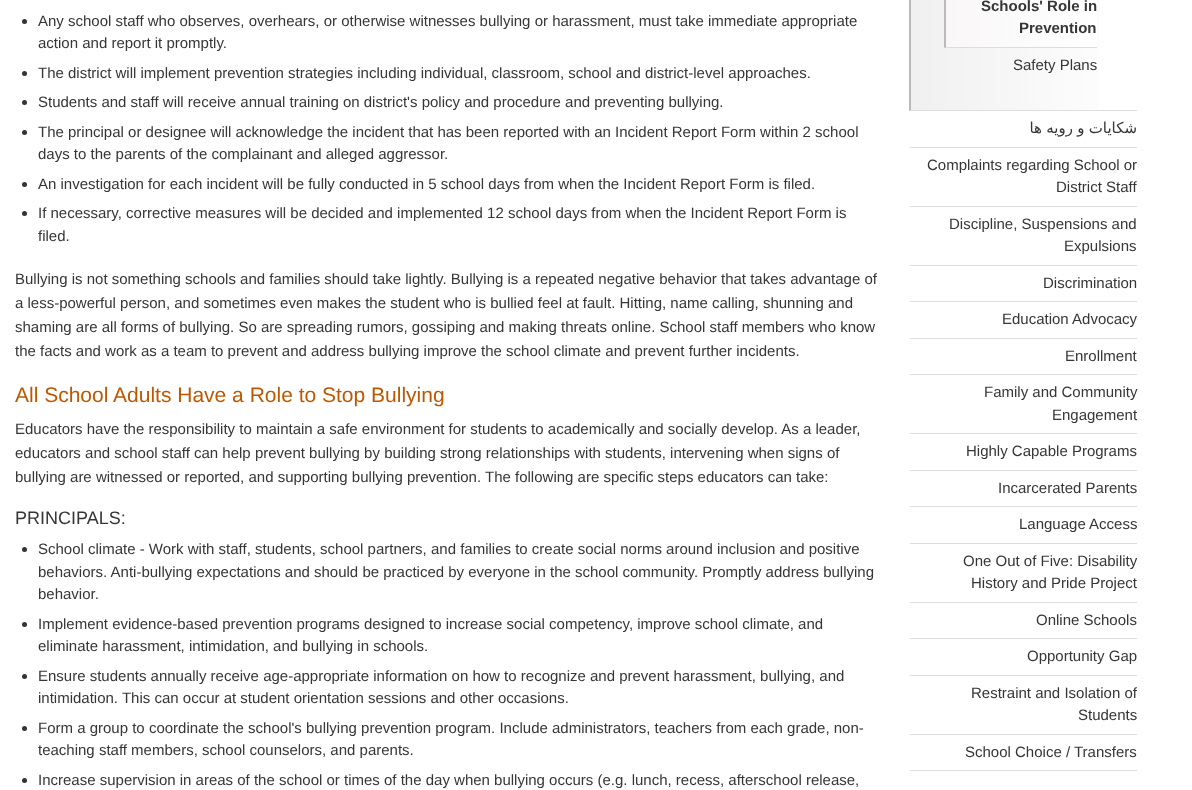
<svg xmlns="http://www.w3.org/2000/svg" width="1192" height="790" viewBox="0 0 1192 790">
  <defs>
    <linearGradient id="g1" gradientUnits="userSpaceOnUse" x1="911" y1="-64" x2="1137" y2="-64"><stop offset="0" stop-color="rgb(240,240,240)"/><stop offset="1" stop-color="rgb(255,255,255)"/></linearGradient>
    <linearGradient id="g2" gradientUnits="userSpaceOnUse" x1="946" y1="18" x2="1097" y2="18"><stop offset="0" stop-color="rgb(249,247,247)"/><stop offset="1" stop-color="rgb(255,255,255)"/></linearGradient>
  </defs>
  <rect width="100%" height="100%" fill="rgb(255,255,255)"/>
  <circle cx="24.5" cy="21.5" r="2.5" fill="rgb(51,51,51)"/>
  <g font-family="Liberation Sans" font-size="15" fill="rgb(54,54,54)">
    <text>
      <tspan x="38" y="26">Any school staff who observes, overhears, or otherwise witnesses bullying or harassment, must take immediate appropriate</tspan>
      <tspan x="38" y="48">action and report it promptly.</tspan>
    </text>
  </g>
  <circle cx="24.5" cy="73.5" r="2.5" fill="rgb(51,51,51)"/>
  <text x="38" y="78" font-family="Liberation Sans" font-size="15" fill="rgb(54,54,54)">The district will implement prevention strategies including individual, classroom, school and district-level approaches.</text>
  <circle cx="24.5" cy="102.5" r="2.5" fill="rgb(51,51,51)"/>
  <text x="38" y="107" font-family="Liberation Sans" font-size="15" fill="rgb(54,54,54)">Students and staff will receive annual training on district's policy and procedure and preventing bullying.</text>
  <circle cx="24.5" cy="132.5" r="2.5" fill="rgb(51,51,51)"/>
  <g font-family="Liberation Sans" font-size="15" fill="rgb(54,54,54)">
    <text>
      <tspan x="38" y="137">The principal or designee will acknowledge the incident that has been reported with an Incident Report Form within 2 school</tspan>
      <tspan x="38" y="159">days to the parents of the complainant and alleged aggressor.</tspan>
    </text>
  </g>
  <circle cx="24.5" cy="184.5" r="2.5" fill="rgb(51,51,51)"/>
  <text x="38" y="189" font-family="Liberation Sans" font-size="15" fill="rgb(54,54,54)">An investigation for each incident will be fully conducted in 5 school days from when the Incident Report Form is filed.</text>
  <circle cx="24.5" cy="213.5" r="2.5" fill="rgb(51,51,51)"/>
  <g font-family="Liberation Sans" font-size="15" fill="rgb(54,54,54)">
    <text>
      <tspan x="38" y="218">If necessary, corrective measures will be decided and implemented 12 school days from when the Incident Report Form is</tspan>
      <tspan x="38" y="241">filed.</tspan>
    </text>
    <text>
      <tspan x="15" y="284">Bullying is not something schools and families should take lightly. Bullying is a repeated negative behavior that takes advantage of</tspan>
      <tspan x="15" y="308">a less-powerful person, and sometimes even makes the student who is bullied feel at fault. Hitting, name calling, shunning and</tspan>
      <tspan x="15" y="332">shaming are all forms of bullying. So are spreading rumors, gossiping and making threats online. School staff members who know</tspan>
      <tspan x="15" y="356">the facts and work as a team to prevent and address bullying improve the school climate and prevent further incidents.</tspan>
    </text>
  </g>
  <text x="15" y="402" font-family="Liberation Sans" font-size="21" fill="rgb(189,88,0)">All School Adults Have a Role to Stop Bullying</text>
  <g font-family="Liberation Sans" font-size="15" fill="rgb(54,54,54)">
    <text>
      <tspan x="15" y="434">Educators have the responsibility to maintain a safe environment for students to academically and socially develop. As a leader,</tspan>
      <tspan x="15" y="458">educators and school staff can help prevent bullying by building strong relationships with students, intervening when signs of</tspan>
      <tspan x="15" y="482">bullying are witnessed or reported, and supporting bullying prevention. The following are specific steps educators can take:</tspan>
    </text>
  </g>
  <text x="15" y="524" font-family="Liberation Sans" font-size="18" fill="rgb(54,54,54)">PRINCIPALS:</text>
  <circle cx="24.5" cy="549.5" r="2.5" fill="rgb(51,51,51)"/>
  <g font-family="Liberation Sans" font-size="15" fill="rgb(54,54,54)">
    <text>
      <tspan x="38" y="554">School climate - Work with staff, students, school partners, and families to create social norms around inclusion and positive</tspan>
      <tspan x="38" y="577">behaviors. Anti-bullying expectations and should be practiced by everyone in the school community. Promptly address bullying</tspan>
      <tspan x="38" y="599">behavior.</tspan>
    </text>
  </g>
  <circle cx="24.5" cy="624.5" r="2.5" fill="rgb(51,51,51)"/>
  <g font-family="Liberation Sans" font-size="15" fill="rgb(54,54,54)">
    <text>
      <tspan x="38" y="629">Implement evidence-based prevention programs designed to increase social competency, improve school climate, and</tspan>
      <tspan x="38" y="651">eliminate harassment, intimidation, and bullying in schools.</tspan>
    </text>
  </g>
  <circle cx="24.5" cy="676.5" r="2.5" fill="rgb(51,51,51)"/>
  <g font-family="Liberation Sans" font-size="15" fill="rgb(54,54,54)">
    <text>
      <tspan x="38" y="681">Ensure students annually receive age-appropriate information on how to recognize and prevent harassment, bullying, and</tspan>
      <tspan x="38" y="703">intimidation. This can occur at student orientation sessions and other occasions.</tspan>
    </text>
  </g>
  <circle cx="24.5" cy="728.5" r="2.5" fill="rgb(51,51,51)"/>
  <g font-family="Liberation Sans" font-size="15" fill="rgb(54,54,54)">
    <text>
      <tspan x="38" y="733">Form a group to coordinate the school's bullying prevention program. Include administrators, teachers from each grade, non-</tspan>
      <tspan x="38" y="755">teaching staff members, school counselors, and parents.</tspan>
    </text>
  </g>
  <circle cx="24.5" cy="780.5" r="2.5" fill="rgb(51,51,51)"/>
  <text x="38" y="785" font-family="Liberation Sans" font-size="15" fill="rgb(54,54,54)">Increase supervision in areas of the school or times of the day when bullying occurs (e.g. lunch, recess, afterschool release,</text>
  <rect x="911" y="0" width="188" height="110" fill="url(#g1)"/>
  <path d="M1137 111H909L911 110H1137Z" fill="rgb(221,221,221)"/>
  <path d="M909 111V-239H911V110Z" fill="rgb(186,186,186)"/>
  <rect x="946" y="0" width="151" height="47" fill="url(#g2)"/>
  <path d="M1097 48H944L946 47H1097Z" fill="rgb(221,221,221)"/>
  <path d="M944 48V-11H946V47Z" fill="rgb(186,186,186)"/>
  <g font-family="Liberation Sans" font-size="15" font-weight="bold" fill="rgb(54,54,54)">
    <text x="981" y="11">Schools' Role in</text>
    <text x="1019" y="33">Prevention</text>
  </g>
  <text x="1013" y="70" font-family="Liberation Sans" font-size="15" fill="rgb(54,54,54)">Safety Plans</text>
  <path d="M1137 148H909L911 147H1137Z" fill="rgb(221,221,221)"/>
  <text x="1137" y="133" word-spacing="-0.5" font-family="DejaVu Sans" font-size="15" direction="rtl" fill="rgb(54,54,54)">شکایات و رویه ها</text>
  <path d="M1137 207H909L911 206H1137Z" fill="rgb(221,221,221)"/>
  <g font-family="Liberation Sans" font-size="15" fill="rgb(54,54,54)">
    <text x="927" y="170">Complaints regarding School or</text>
    <text x="1056" y="192">District Staff</text>
  </g>
  <path d="M1137 266H909L911 265H1137Z" fill="rgb(221,221,221)"/>
  <g font-family="Liberation Sans" font-size="15" fill="rgb(54,54,54)">
    <text x="949" y="229">Discipline, Suspensions and</text>
    <text x="1064" y="251">Expulsions</text>
  </g>
  <path d="M1137 302H909L911 301H1137Z" fill="rgb(221,221,221)"/>
  <text x="1043" y="288" font-family="Liberation Sans" font-size="15" fill="rgb(54,54,54)">Discrimination</text>
  <path d="M1137 339H909L911 338H1137Z" fill="rgb(221,221,221)"/>
  <text x="1002" y="324" font-family="Liberation Sans" font-size="15" fill="rgb(54,54,54)">Education Advocacy</text>
  <path d="M1137 375H909L911 374H1137Z" fill="rgb(221,221,221)"/>
  <text x="1065" y="361" font-family="Liberation Sans" font-size="15" fill="rgb(54,54,54)">Enrollment</text>
  <path d="M1137 434H909L911 433H1137Z" fill="rgb(221,221,221)"/>
  <g font-family="Liberation Sans" font-size="15" fill="rgb(54,54,54)">
    <text x="984" y="397">Family and Community</text>
    <text x="1052" y="420">Engagement</text>
  </g>
  <path d="M1137 471H909L911 470H1137Z" fill="rgb(221,221,221)"/>
  <text x="966" y="456" font-family="Liberation Sans" font-size="15" fill="rgb(54,54,54)">Highly Capable Programs</text>
  <path d="M1137 507H909L911 506H1137Z" fill="rgb(221,221,221)"/>
  <text x="998" y="493" font-family="Liberation Sans" font-size="15" fill="rgb(54,54,54)">Incarcerated Parents</text>
  <path d="M1137 544H909L911 543H1137Z" fill="rgb(221,221,221)"/>
  <text x="1019" y="529" font-family="Liberation Sans" font-size="15" fill="rgb(54,54,54)">Language Access</text>
  <path d="M1137 603H909L911 602H1137Z" fill="rgb(221,221,221)"/>
  <g font-family="Liberation Sans" font-size="15" fill="rgb(54,54,54)">
    <text x="963" y="566">One Out of Five: Disability</text>
    <text x="971" y="588">History and Pride Project</text>
  </g>
  <path d="M1137 639H909L911 638H1137Z" fill="rgb(221,221,221)"/>
  <text x="1036" y="625" font-family="Liberation Sans" font-size="15" fill="rgb(54,54,54)">Online Schools</text>
  <path d="M1137 676H909L911 675H1137Z" fill="rgb(221,221,221)"/>
  <text x="1027" y="661" font-family="Liberation Sans" font-size="15" fill="rgb(54,54,54)">Opportunity Gap</text>
  <path d="M1137 735H909L911 734H1137Z" fill="rgb(221,221,221)"/>
  <g font-family="Liberation Sans" font-size="15" fill="rgb(54,54,54)">
    <text x="971" y="698">Restraint and Isolation of</text>
    <text x="1078" y="720">Students</text>
  </g>
  <path d="M1137 771H909L911 770H1137Z" fill="rgb(221,221,221)"/>
  <text x="965" y="757" font-family="Liberation Sans" font-size="15" fill="rgb(54,54,54)">School Choice / Transfers</text>
</svg>
